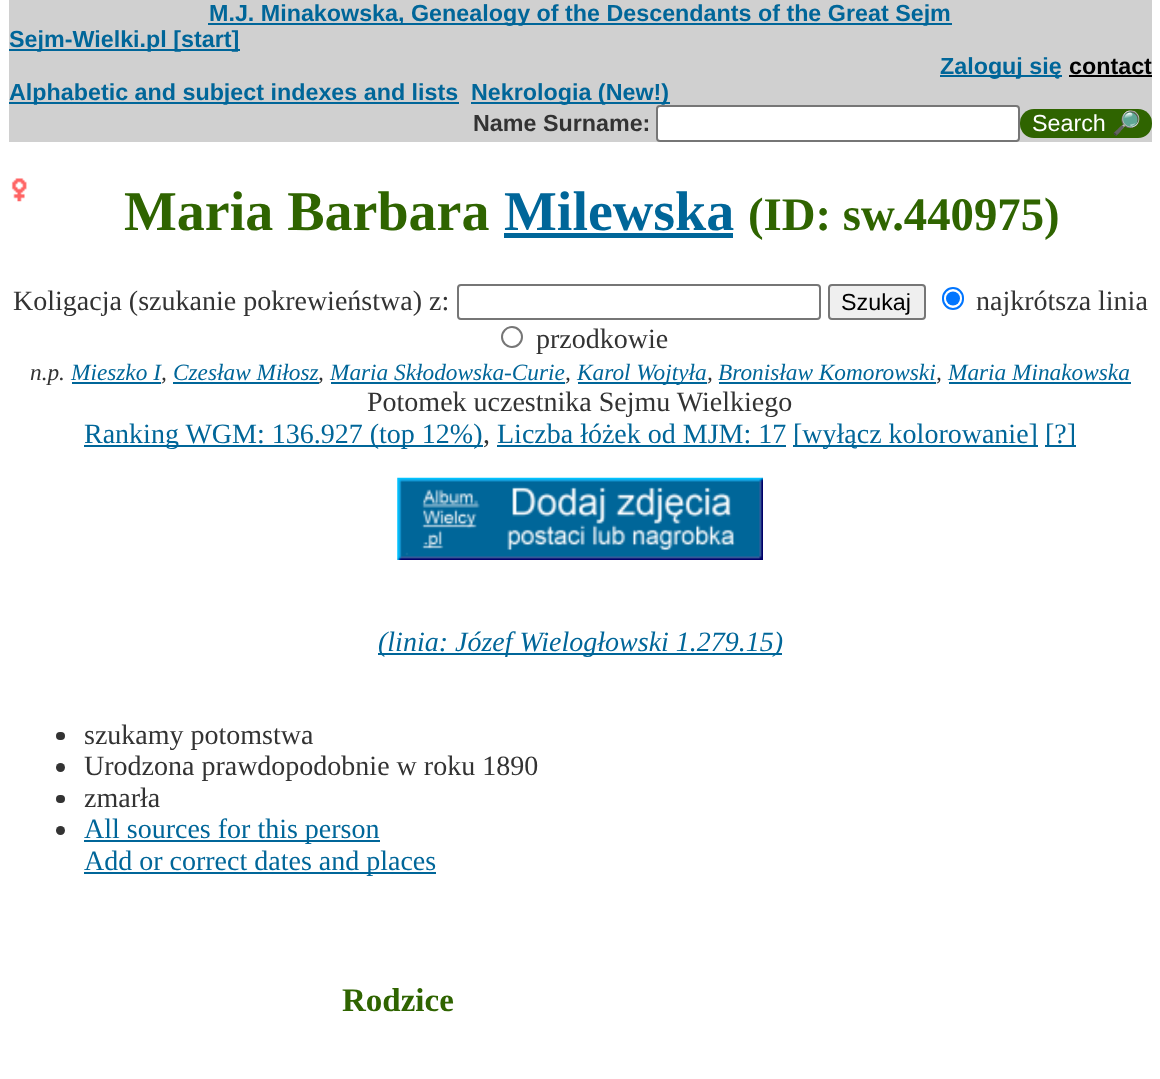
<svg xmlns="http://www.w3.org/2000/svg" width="1160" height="1079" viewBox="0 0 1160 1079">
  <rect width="100%" height="100%" fill="rgb(255,255,255)"/>
  <rect x="9" y="0" width="1143" height="142" fill="rgb(208,208,208)"/>
  <rect x="208" y="23" width="744" height="2" fill="rgb(0,102,153)"/>
  <text x="209" y="21" font-family="Liberation Sans" font-size="23.3" font-weight="bold" fill="rgb(0,102,153)">M.J. Minakowska, Genealogy of the Descendants of the Great Sejm</text>
  <rect x="9" y="49" width="231" height="2" fill="rgb(0,102,153)"/>
  <text x="9" y="47" font-family="Liberation Sans" font-size="23.3" font-weight="bold" fill="rgb(0,102,153)">Sejm-Wielki.pl [start]</text>
  <rect x="940" y="75" width="122" height="2" fill="rgb(0,102,153)"/>
  <text x="940" y="74" font-family="Liberation Sans" font-size="23.3" font-weight="bold" fill="rgb(0,102,153)">Zaloguj się</text>
  <text x="1069" y="74" font-family="Liberation Sans" font-size="23.3" font-weight="bold" fill="rgb(0,0,0)">contact</text>
  <rect x="1069" y="75" width="83" height="2" fill="rgb(0,0,0)"/>
  <rect x="9" y="102" width="450" height="2" fill="rgb(0,102,153)"/>
  <text x="9" y="100" font-family="Liberation Sans" font-size="23.3" font-weight="bold" fill="rgb(0,102,153)">Alphabetic and subject indexes and lists</text>
  <rect x="471" y="102" width="199" height="2" fill="rgb(0,102,153)"/>
  <text x="471" y="100" font-family="Liberation Sans" font-size="23.3" font-weight="bold" fill="rgb(0,102,153)">Nekrologia (New!)</text>
  <text x="473" y="131" font-family="Liberation Sans" font-size="23.3" font-weight="bold" fill="rgb(51,51,51)">Name Surname:</text>
  <rect x="657" y="106" width="362" height="35" rx="3" fill="rgb(255,255,255)" stroke="rgb(118,118,118)" stroke-width="2"/>
  <rect x="1020" y="109" width="132" height="29" rx="14" fill="rgb(47,100,0)"/>
  <text x="1032" y="131" font-family="Liberation Sans" font-size="23.3" fill="rgb(255,255,255)">Search</text>
  <text x="1112" y="131" font-family="Noto Color Emoji" font-size="23.3" fill="rgb(255,255,255)">🔎</text>
  <image x="11" y="178" width="16" height="24" href="pic1.png"/>
  <text x="124" y="230" font-family="Liberation Serif" font-size="56" font-weight="bold" fill="rgb(47,100,0)">Maria Barbara</text>
  <text x="504" y="230" font-family="Liberation Serif" font-size="56" font-weight="bold" fill="rgb(0,102,153)">Milewska</text>
  <rect x="504" y="233" width="229" height="5" fill="rgb(0,102,153)"/>
  <text x="748" y="230" font-family="Liberation Serif" font-size="46.75" font-weight="bold" fill="rgb(47,100,0)">(ID: sw.440975)</text>
  <text x="13" y="310" font-family="Liberation Serif" font-size="28" fill="rgb(51,51,51)">Koligacja (szukanie pokrewieństwa) z:</text>
  <rect x="458" y="285" width="362" height="34" rx="3" fill="none" stroke="rgb(118,118,118)" stroke-width="2"/>
  <rect x="829" y="285" width="96" height="34" rx="3" fill="rgb(239,239,239)" stroke="rgb(118,118,118)" stroke-width="2"/>
  <text x="841" y="310" font-family="Liberation Sans" font-size="23.3" fill="rgb(0,0,0)">Szukaj</text>
  <rect x="943" y="288" width="20" height="21" rx="10" fill="none" stroke="rgb(0,117,255)" stroke-width="2"/>
  <circle cx="953" cy="298.5" r="7" fill="rgb(0,117,255)"/>
  <text x="976" y="310" font-family="Liberation Serif" font-size="28" fill="rgb(51,51,51)">najkrótsza linia</text>
  <circle cx="512" cy="337" r="10" fill="none" stroke="rgb(118,118,118)" stroke-width="2"/>
  <text x="536" y="348" font-family="Liberation Serif" font-size="28" fill="rgb(51,51,51)">przodkowie</text>
  <text x="30" y="380" font-family="Liberation Serif" font-size="23.3" font-style="italic" fill="rgb(51,51,51)">n.p.</text>
  <text x="71" y="380" font-family="Liberation Serif" font-size="23.3" font-style="italic" fill="rgb(0,102,153)">Mieszko I</text>
  <text x="161" y="380" font-family="Liberation Serif" font-size="23.3" font-style="italic" fill="rgb(51,51,51)">,</text>
  <rect x="72" y="382" width="89" height="2" fill="rgb(0,102,153)"/>
  <text x="173" y="380" font-family="Liberation Serif" font-size="23.3" font-style="italic" fill="rgb(0,102,153)">Czesław Miłosz</text>
  <text x="318" y="380" font-family="Liberation Serif" font-size="23.3" font-style="italic" fill="rgb(51,51,51)">,</text>
  <rect x="173" y="382" width="146" height="2" fill="rgb(0,102,153)"/>
  <text x="330" y="380" font-family="Liberation Serif" font-size="23.3" font-style="italic" fill="rgb(0,102,153)">Maria Skłodowska-Curie</text>
  <text x="565" y="380" font-family="Liberation Serif" font-size="23.3" font-style="italic" fill="rgb(51,51,51)">,</text>
  <rect x="331" y="382" width="234" height="2" fill="rgb(0,102,153)"/>
  <rect x="578" y="382" width="129" height="2" fill="rgb(0,102,153)"/>
  <text x="577" y="380" font-family="Liberation Serif" font-size="23.3" font-style="italic" fill="rgb(0,102,153)">Karol Wojtyła</text>
  <text x="707" y="380" font-family="Liberation Serif" font-size="23.3" font-style="italic" fill="rgb(51,51,51)">,</text>
  <text x="718" y="380" font-family="Liberation Serif" font-size="23.3" font-style="italic" fill="rgb(0,102,153)">Bronisław Komorowski</text>
  <text x="936" y="380" font-family="Liberation Serif" font-size="23.3" font-style="italic" fill="rgb(51,51,51)">,</text>
  <rect x="719" y="382" width="217" height="2" fill="rgb(0,102,153)"/>
  <rect x="949" y="382" width="182" height="2" fill="rgb(0,102,153)"/>
  <text x="948" y="380" font-family="Liberation Serif" font-size="23.3" font-style="italic" fill="rgb(0,102,153)">Maria Minakowska</text>
  <text x="367" y="411" font-family="Liberation Serif" font-size="28" fill="rgb(51,51,51)">Potomek uczestnika Sejmu Wielkiego</text>
  <rect x="84" y="445" width="399" height="2" fill="rgb(0,102,153)"/>
  <text x="84" y="443" font-family="Liberation Serif" font-size="28" fill="rgb(0,102,153)">Ranking WGM: 136.927 (top 12%)</text>
  <text x="483" y="443" font-family="Liberation Serif" font-size="28" fill="rgb(51,51,51)">,</text>
  <text x="497" y="443" font-family="Liberation Serif" font-size="28" fill="rgb(0,102,153)">Liczba łóżek od MJM: 17</text>
  <rect x="497" y="445" width="289" height="2" fill="rgb(0,102,153)"/>
  <rect x="793" y="445" width="245" height="2" fill="rgb(0,102,153)"/>
  <text x="793" y="443" font-family="Liberation Serif" font-size="28" fill="rgb(0,102,153)">[wyłącz kolorowanie]</text>
  <rect x="1045" y="445" width="31" height="2" fill="rgb(0,102,153)"/>
  <text x="1045" y="443" font-family="Liberation Serif" font-size="28" fill="rgb(0,102,153)">[?]</text>
  <image x="397" y="477" width="366" height="83" href="pic2.png"/>
  <rect x="378" y="653" width="404" height="2" fill="rgb(0,102,153)"/>
  <text x="378" y="651" font-family="Liberation Serif" font-size="28" font-style="italic" fill="rgb(0,102,153)">(linia: Józef Wielogłowski 1.279.15)</text>
  <rect x="56" y="732" width="9" height="8" rx="4" fill="rgb(51,51,51)"/>
  <text x="84" y="744" font-family="Liberation Serif" font-size="28" fill="rgb(51,51,51)">szukamy potomstwa</text>
  <circle cx="60.5" cy="767.5" r="4.5" fill="rgb(51,51,51)"/>
  <text x="84" y="775" font-family="Liberation Serif" font-size="28" fill="rgb(51,51,51)">Urodzona prawdopodobnie w roku 1890</text>
  <rect x="56" y="795" width="9" height="8" rx="4" fill="rgb(51,51,51)"/>
  <text x="84" y="807" font-family="Liberation Serif" font-size="28" fill="rgb(51,51,51)">zmarła</text>
  <circle cx="60.5" cy="830.5" r="4.5" fill="rgb(51,51,51)"/>
  <rect x="84" y="840" width="296" height="2" fill="rgb(0,102,153)"/>
  <text x="84" y="838" font-family="Liberation Serif" font-size="28" fill="rgb(0,102,153)">All sources for this person</text>
  <rect x="84" y="872" width="352" height="2" fill="rgb(0,102,153)"/>
  <text x="84" y="870" font-family="Liberation Serif" font-size="28" fill="rgb(0,102,153)">Add or correct dates and places</text>
  <text x="342" y="1011" font-family="Liberation Serif" font-size="33" font-weight="bold" fill="rgb(47,100,0)">Rodzice</text>
</svg>
